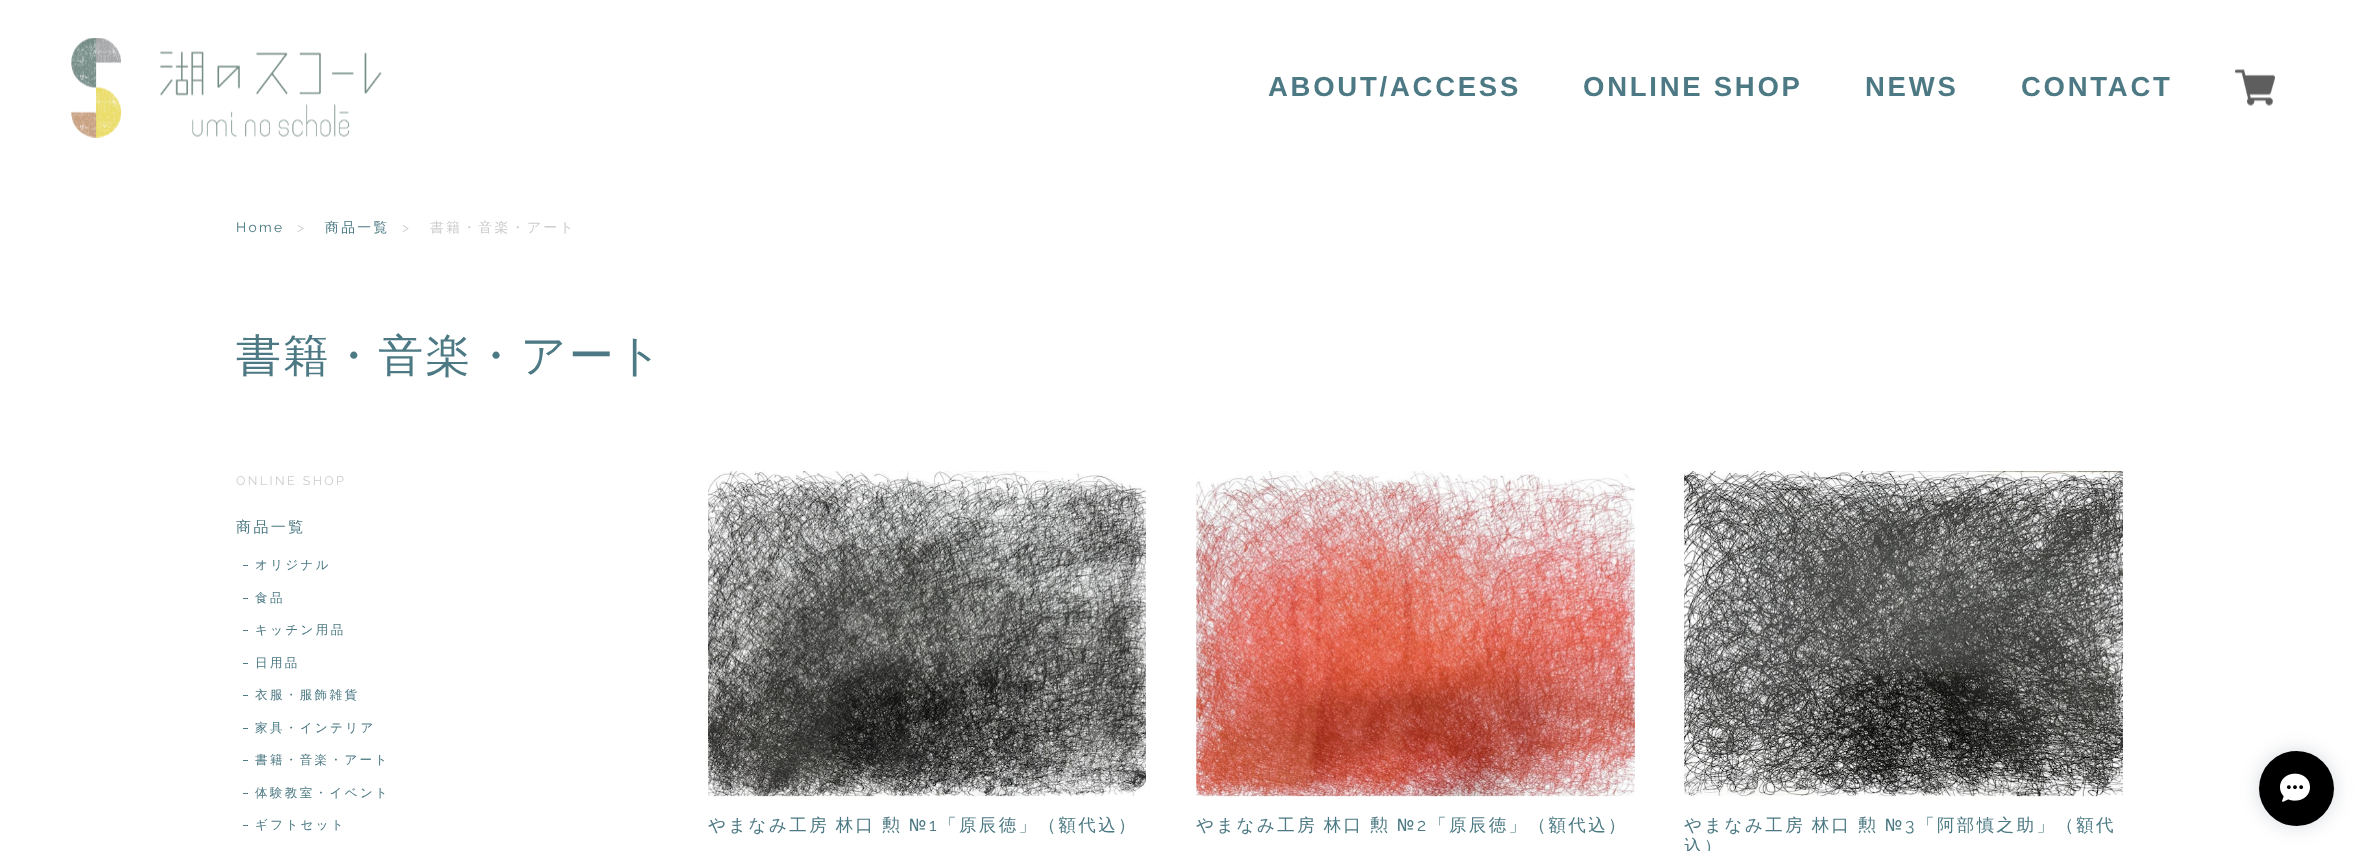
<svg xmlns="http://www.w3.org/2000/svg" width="2358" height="851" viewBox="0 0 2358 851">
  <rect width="100%" height="100%" fill="rgb(255,255,255)"/>
  <image x="71" y="38" width="311" height="100" href="pic1.png"/>
  <g font-family="Liberation Sans" font-size="27.5" font-weight="bold" letter-spacing="2.75" fill="rgb(76,121,131)">
    <text x="1268" y="96">ABOUT/ACCESS</text>
    <text x="1583" y="96">ONLINE SHOP</text>
    <text x="1865" y="96">NEWS</text>
    <text x="2021" y="96">CONTACT</text>
  </g>
  <image x="2235" y="69" width="40" height="37" href="pic2.png"/>
  <text x="236" y="232" font-family="Raleway" font-size="13.75" letter-spacing="2.4" fill="rgb(76,121,131)">Home</text>
  <text x="297" y="232" font-family="Raleway" font-size="13.75" letter-spacing="2.4" fill="rgb(204,204,204)">&gt;</text>
  <text x="325" y="232" font-family="WenQuanYi Zen Hei" font-size="13.75" font-weight="500" letter-spacing="2.4" fill="rgb(76,121,131)">商品一覧</text>
  <text x="402" y="232" font-family="Raleway" font-size="13.75" letter-spacing="2.4" fill="rgb(204,204,204)">&gt;</text>
  <text x="430" y="232" font-family="WenQuanYi Zen Hei" font-size="13.75" font-weight="500" letter-spacing="2.4" fill="rgb(204,204,204)">書籍・音楽・アート</text>
  <text x="236" y="371" font-family="WenQuanYi Zen Hei" font-size="45" font-weight="500" letter-spacing="2.4" fill="rgb(76,121,131)">書籍・音楽・アート</text>
  <text x="236" y="485" font-family="Raleway" font-size="12.5" letter-spacing="2.4" fill="rgb(204,204,204)">ONLINE SHOP</text>
  <text x="236" y="532" font-family="WenQuanYi Zen Hei" font-size="15" font-weight="500" letter-spacing="2.4" fill="rgb(76,121,131)">商品一覧</text>
  <rect x="243" y="565" width="5" height="1" fill="rgb(76,121,131)"/>
  <text x="255" y="569" font-family="WenQuanYi Zen Hei" font-size="12.5" font-weight="500" letter-spacing="2.4" fill="rgb(76,121,131)">オリジナル</text>
  <rect x="243" y="598" width="5" height="1" fill="rgb(76,121,131)"/>
  <text x="255" y="602" font-family="WenQuanYi Zen Hei" font-size="12.5" font-weight="500" letter-spacing="2.4" fill="rgb(76,121,131)">食品</text>
  <rect x="243" y="630" width="5" height="1" fill="rgb(76,121,131)"/>
  <text x="255" y="634" font-family="WenQuanYi Zen Hei" font-size="12.5" font-weight="500" letter-spacing="2.4" fill="rgb(76,121,131)">キッチン用品</text>
  <rect x="243" y="663" width="5" height="1" fill="rgb(76,121,131)"/>
  <text x="255" y="667" font-family="WenQuanYi Zen Hei" font-size="12.5" font-weight="500" letter-spacing="2.4" fill="rgb(76,121,131)">日用品</text>
  <rect x="243" y="695" width="5" height="1" fill="rgb(76,121,131)"/>
  <text x="255" y="699" font-family="WenQuanYi Zen Hei" font-size="12.5" font-weight="500" letter-spacing="2.4" fill="rgb(76,121,131)">衣服・服飾雑貨</text>
  <rect x="243" y="728" width="5" height="1" fill="rgb(76,121,131)"/>
  <text x="255" y="732" font-family="WenQuanYi Zen Hei" font-size="12.5" font-weight="500" letter-spacing="2.4" fill="rgb(76,121,131)">家具・インテリア</text>
  <rect x="243" y="760" width="5" height="1" fill="rgb(76,121,131)"/>
  <text x="255" y="764" font-family="WenQuanYi Zen Hei" font-size="12.5" font-weight="500" letter-spacing="2.4" fill="rgb(76,121,131)">書籍・音楽・アート</text>
  <rect x="243" y="793" width="5" height="1" fill="rgb(76,121,131)"/>
  <text x="255" y="797" font-family="WenQuanYi Zen Hei" font-size="12.5" font-weight="500" letter-spacing="2.4" fill="rgb(76,121,131)">体験教室・イベント</text>
  <rect x="243" y="825" width="5" height="1" fill="rgb(76,121,131)"/>
  <text x="255" y="829" font-family="WenQuanYi Zen Hei" font-size="12.5" font-weight="500" letter-spacing="2.4" fill="rgb(76,121,131)">ギフトセット</text>
  <image x="708" y="471" width="438" height="326" href="pic3.png"/>
  <g font-family="WenQuanYi Zen Hei" font-size="17.5" font-weight="500" letter-spacing="2.4" fill="rgb(76,121,131)">
    <text x="708" y="831" word-spacing="-1">やまなみ工房 林口 勲</text>
    <text x="909" y="831">№</text>
  </g>
  <text x="929" y="831" font-family="Raleway" font-size="17.5" letter-spacing="2.4" fill="rgb(76,121,131)">1</text>
  <text x="939" y="831" font-family="WenQuanYi Zen Hei" font-size="17.5" font-weight="500" letter-spacing="2.4" fill="rgb(76,121,131)">「原辰徳」（額代込）</text>
  <image x="1196" y="471" width="439" height="326" href="pic4.png"/>
  <g font-family="WenQuanYi Zen Hei" font-size="17.5" font-weight="500" letter-spacing="2.4" fill="rgb(76,121,131)">
    <text x="1196" y="831" word-spacing="-1">やまなみ工房 林口 勲</text>
    <text x="1397" y="831">№</text>
  </g>
  <text x="1417" y="831" font-family="Raleway" font-size="17.5" letter-spacing="2.4" fill="rgb(76,121,131)">2</text>
  <text x="1429" y="831" font-family="WenQuanYi Zen Hei" font-size="17.5" font-weight="500" letter-spacing="2.4" fill="rgb(76,121,131)">「原辰徳」（額代込）</text>
  <image x="1684" y="471" width="439" height="326" href="pic5.png"/>
  <g font-family="WenQuanYi Zen Hei" font-size="17.5" font-weight="500" letter-spacing="2.4" fill="rgb(76,121,131)">
    <text x="1684" y="831" word-spacing="-1">やまなみ工房 林口 勲</text>
    <text x="1885" y="831">№</text>
  </g>
  <text x="1905" y="831" font-family="Raleway" font-size="17.5" letter-spacing="2.4" fill="rgb(76,121,131)">3</text>
  <g font-family="WenQuanYi Zen Hei" font-size="17.5" font-weight="500" letter-spacing="2.4" fill="rgb(76,121,131)">
    <text x="1917" y="831">「阿部慎之助」（額代</text>
    <text x="1684" y="852">込）</text>
  </g>
  <rect x="2259" y="751" width="75" height="75" rx="37.5" fill="rgba(51,66,88,0.2)" filter="blur(9.5px)"/>
  <circle cx="2296.5" cy="788.5" r="37.5" fill="rgb(0,0,0)"/>
  <image x="2280" y="773" width="30" height="29" href="pic6.png"/>
</svg>
